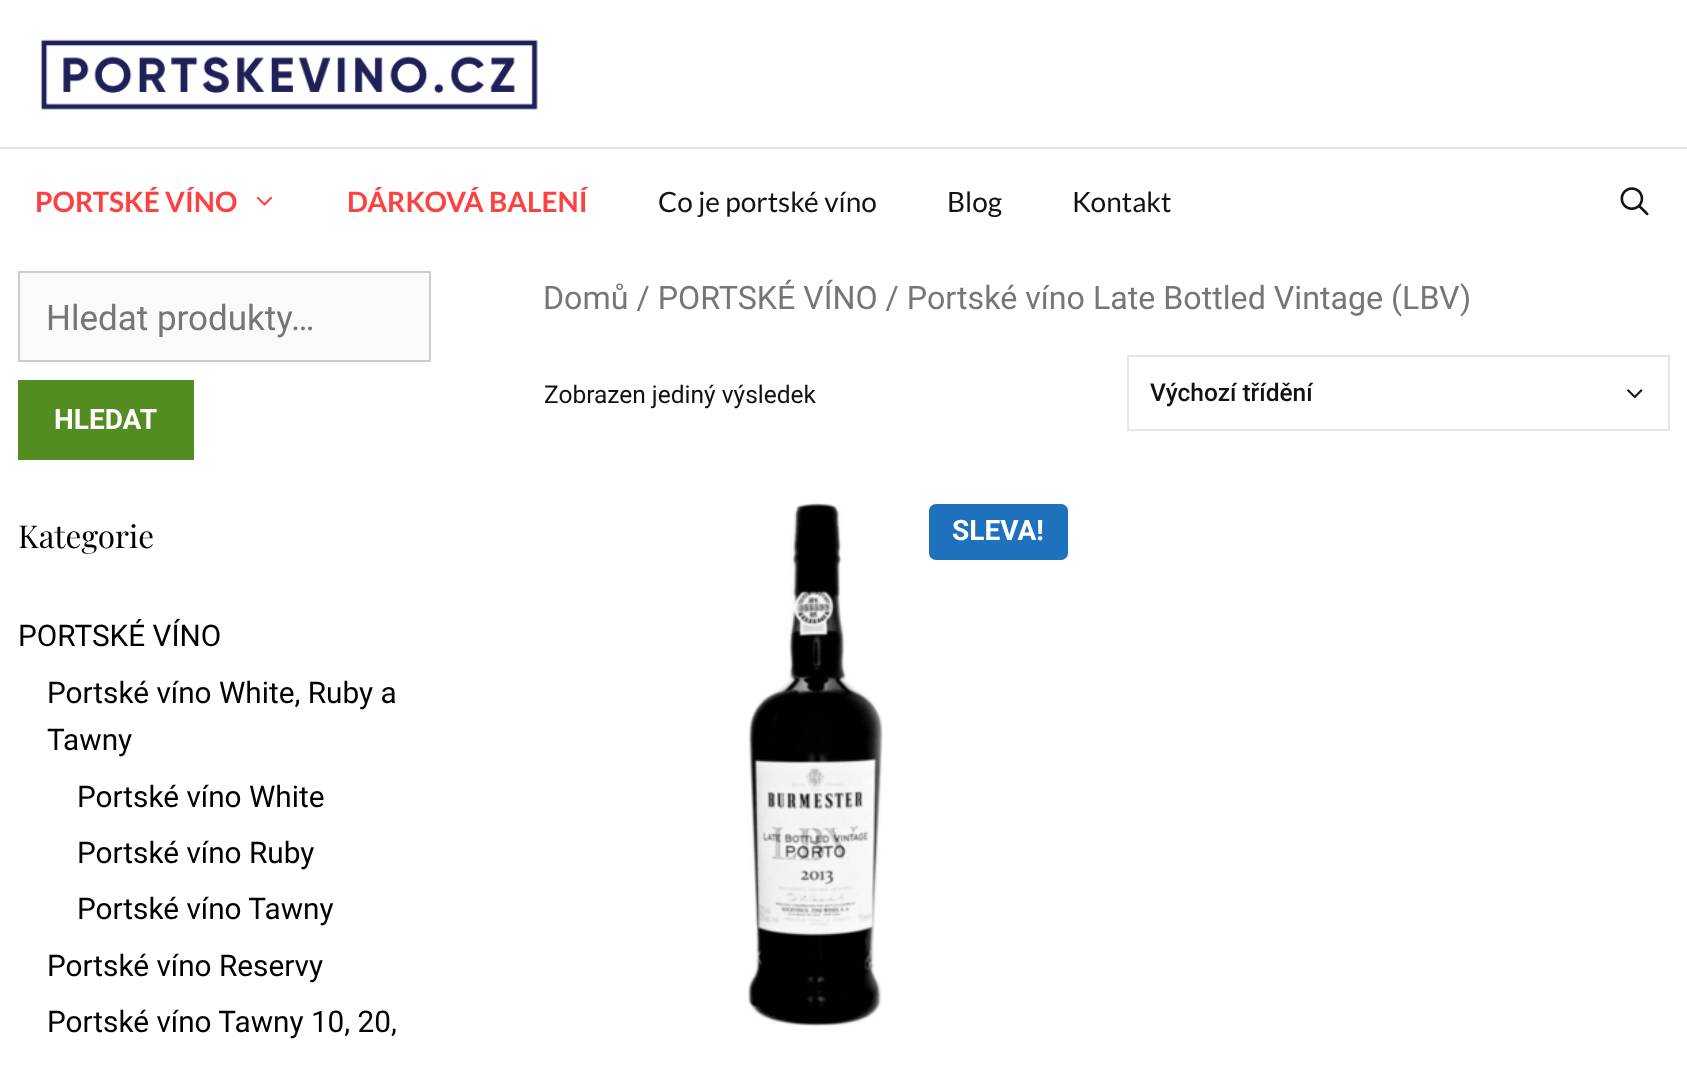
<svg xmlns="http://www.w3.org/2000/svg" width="1687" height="1072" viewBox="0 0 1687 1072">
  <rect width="100%" height="100%" fill="rgb(255,255,255)"/>
  <rect x="0" y="147" width="1687" height="2" fill="rgb(230,230,230)"/>
  <image x="40" y="39" width="498" height="71" href="pic1.png"/>
  <text x="35" y="212" font-family="Lato" font-size="28" font-weight="bold" fill="rgb(255,64,64)">PORTSKÉ VÍNO</text>
  <image x="256" y="196" width="17" height="10" href="pic2.png"/>
  <text x="347" y="212" font-family="Lato" font-size="28" font-weight="bold" fill="rgb(255,64,64)">DÁRKOVÁ BALENÍ</text>
  <g font-family="Lato" font-size="28" fill="rgb(18,18,18)">
    <text x="658" y="212">Co je portské víno</text>
    <text x="947" y="212">Blog</text>
    <text x="1072" y="212">Kontakt</text>
  </g>
  <image x="1620" y="187" width="29" height="29" href="pic3.png"/>
  <rect x="19" y="272" width="411" height="89" fill="rgb(250,250,250)" stroke="rgb(204,204,204)" stroke-width="2"/>
  <text x="46" y="330" font-family="Roboto" font-size="35" fill="rgb(118,118,118)">Hledat produkty…</text>
  <rect x="18" y="380" width="176" height="80" fill="rgb(83,141,34)"/>
  <text x="54" y="429" font-family="Roboto" font-size="28" font-weight="bold" fill="rgb(255,255,255)">HLEDAT</text>
  <text x="18" y="548" font-family="Playfair Display" font-size="31.5" fill="rgb(0,0,0)">Kategorie</text>
  <g font-family="Roboto" font-size="29.75" fill="rgb(0,0,0)">
    <text x="18" y="646">PORTSKÉ VÍNO</text>
    <text>
      <tspan x="47" y="703">Portské víno White, Ruby a</tspan>
      <tspan x="47" y="750">Tawny</tspan>
    </text>
    <text>
      <tspan x="77" y="807">Portské víno White</tspan>
      <tspan x="77" y="863">Portské víno Ruby</tspan>
      <tspan x="77" y="919">Portské víno Tawny</tspan>
    </text>
    <text>
      <tspan x="47" y="976">Portské víno Reservy</tspan>
      <tspan x="47" y="1032">Portské víno Tawny 10, 20,</tspan>
    </text>
  </g>
  <text x="543" y="309" font-family="Roboto" font-size="32.2" fill="rgb(118,118,118)">Domů / PORTSKÉ VÍNO / Portské víno Late Bottled Vintage (LBV)</text>
  <text x="544" y="403" font-family="Roboto" font-size="24.5" fill="rgb(18,18,18)">Zobrazen jediný výsledek</text>
  <rect x="1128" y="356" width="541" height="74" fill="none" stroke="rgb(230,230,230)" stroke-width="2"/>
  <text x="1150" y="401" font-family="Roboto" font-size="24.5" font-weight="500" fill="rgb(18,18,18)">Výchozí třídění</text>
  <image x="1627" y="389" width="16" height="10" href="pic4.png"/>
  <image x="748" y="502" width="135" height="525" href="pic5.png"/>
  <rect x="929" y="504" width="139" height="56" rx="7" fill="rgb(30,114,189)"/>
  <text x="952" y="540" font-family="Roboto" font-size="28" font-weight="bold" fill="rgb(255,255,255)">SLEVA!</text>
</svg>
